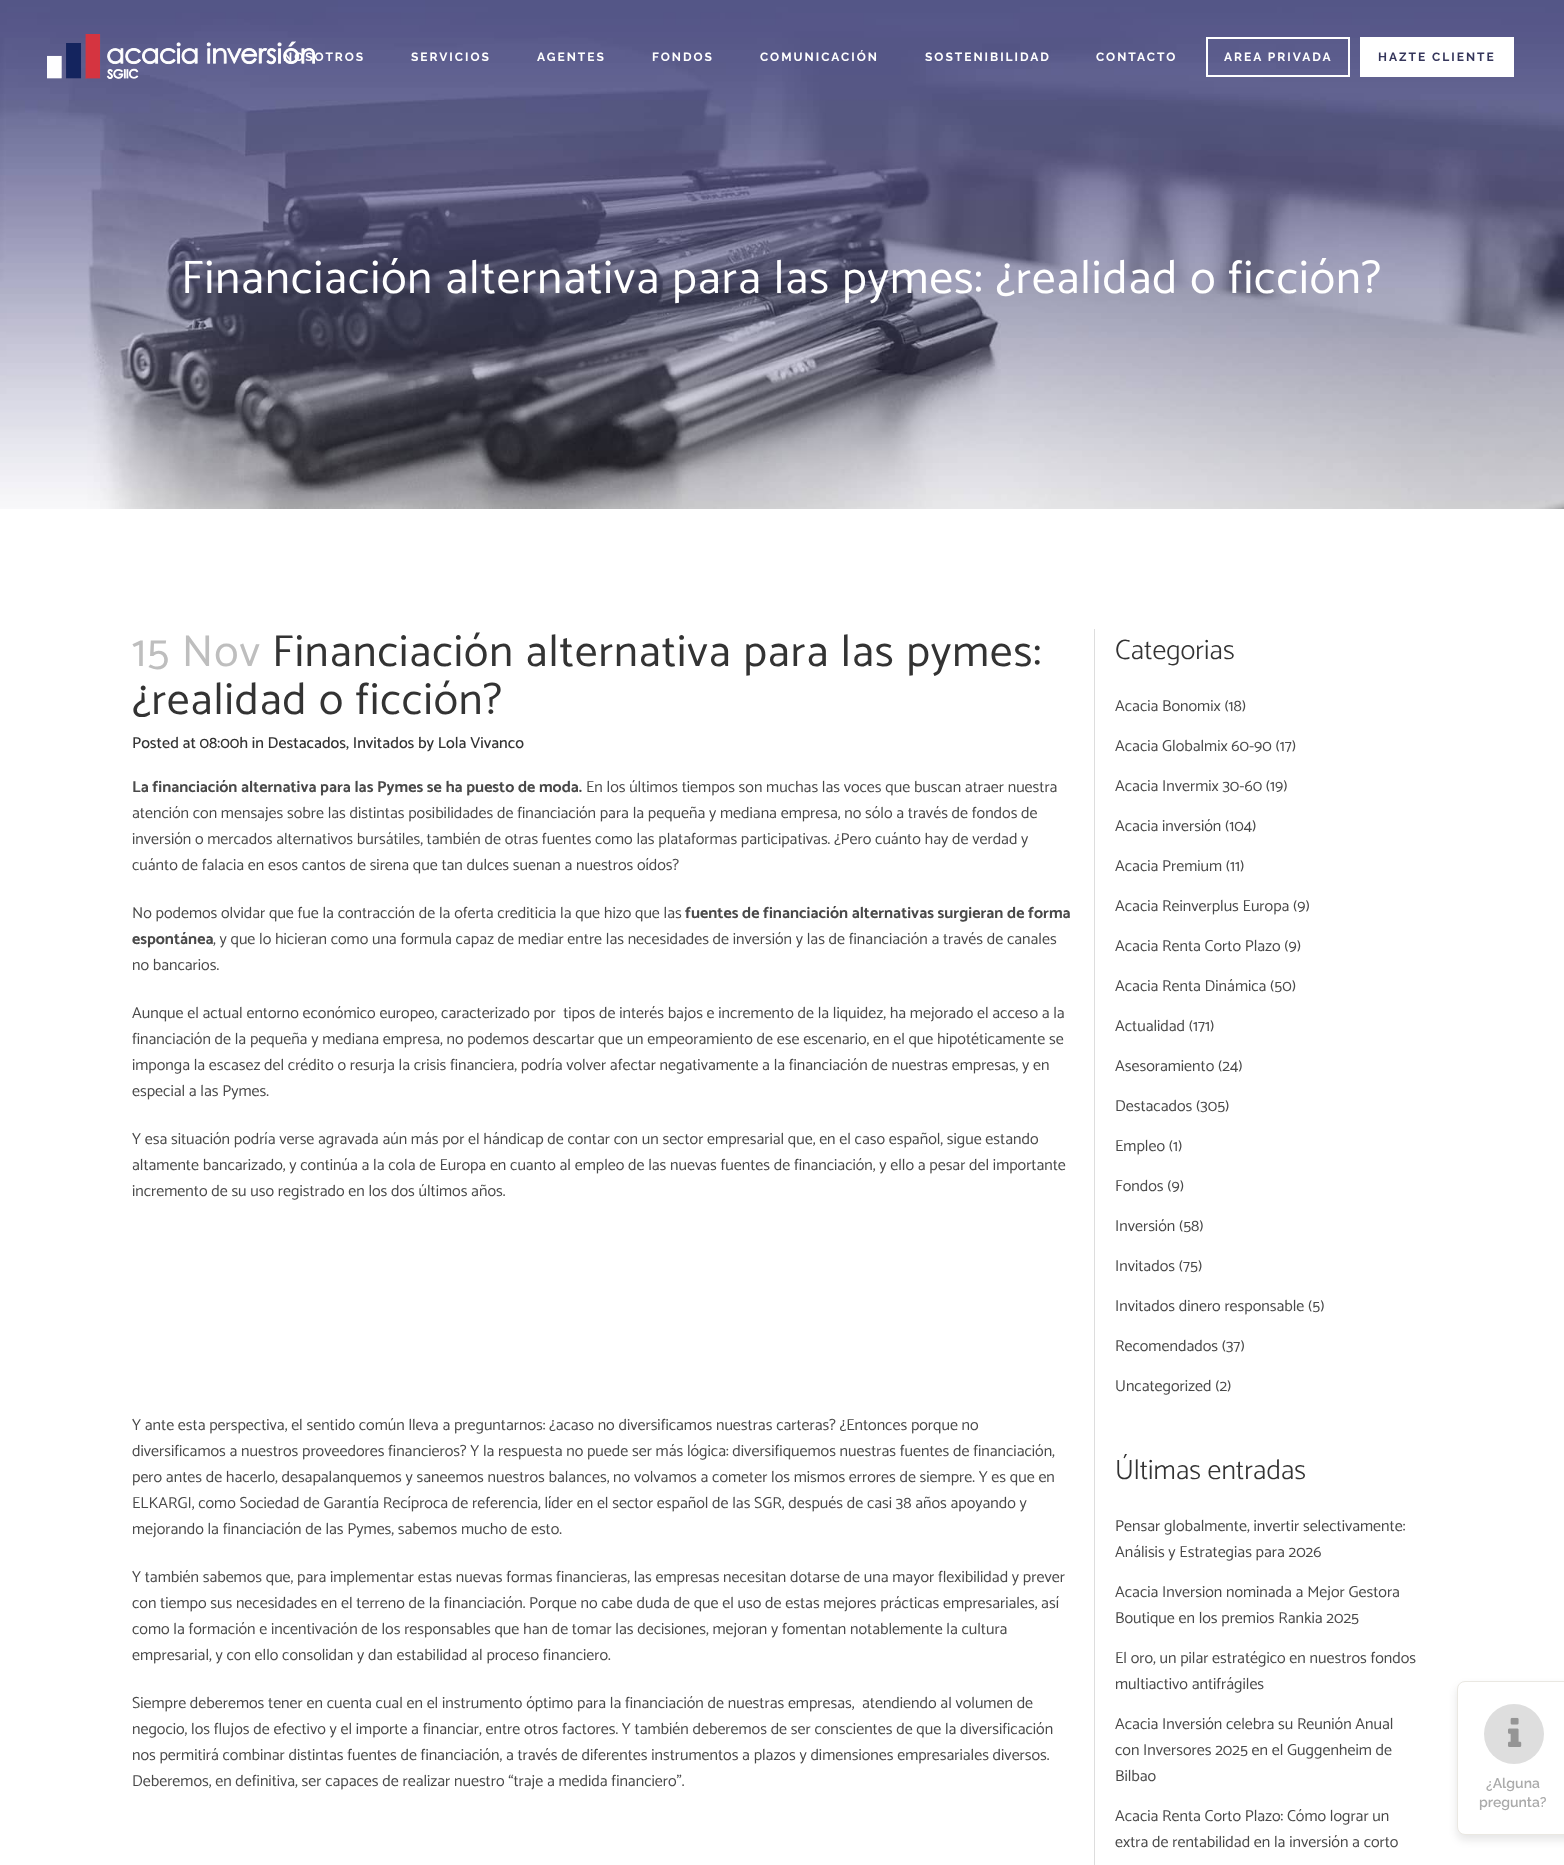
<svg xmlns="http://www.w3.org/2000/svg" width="1564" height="1865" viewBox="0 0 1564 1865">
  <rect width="100%" height="100%" fill="rgb(255,255,255)"/>
  <image x="0" y="0" width="1564" height="509" href="pic2.png"/>
  <image x="47" y="34" width="268" height="45" href="pic1.png"/>
  <g font-family="Raleway" font-size="12" font-weight="bold" letter-spacing="2" fill="rgb(255,255,255)">
    <text x="283" y="61">NOSOTROS</text>
    <text x="411" y="61">SERVICIOS</text>
    <text x="537" y="61">AGENTES</text>
    <text x="652" y="61">FONDOS</text>
    <text x="760" y="61">COMUNICACIÓN</text>
    <text x="925" y="61">SOSTENIBILIDAD</text>
    <text x="1096" y="61">CONTACTO</text>
  </g>
  <rect x="1207" y="38" width="142" height="38" fill="none" stroke="rgb(255,255,255)" stroke-width="2"/>
  <text x="1224" y="61" font-family="Raleway" font-size="12" font-weight="bold" letter-spacing="2" fill="rgb(255,255,255)">AREA PRIVADA</text>
  <rect x="1360" y="37" width="154" height="40" fill="rgb(255,255,255)"/>
  <text x="1378" y="61" font-family="Raleway" font-size="12" font-weight="bold" letter-spacing="2" fill="rgb(53,54,91)">HAZTE CLIENTE</text>
  <text x="181" y="293" font-family="Catamaran" font-size="47" letter-spacing="1" fill="rgb(255,255,255)">Financiación alternativa para las pymes: ¿realidad o ficción?</text>
  <rect x="1094" y="629" width="1" height="1236" fill="rgb(221,221,221)"/>
  <text x="132" y="666" font-family="Catamaran" font-size="45" letter-spacing="1" fill="rgb(190,190,190)">15 Nov</text>
  <g font-family="Catamaran" font-size="45" letter-spacing="1" fill="rgb(51,51,51)">
    <text x="272" y="666">Financiación alternativa para las pymes:</text>
    <text x="132" y="714">¿realidad o ficción?</text>
  </g>
  <text x="132" y="748" font-family="Catamaran" font-size="16" font-weight="500" fill="rgb(51,51,51)">Posted at 08:00h in Destacados, Invitados by Lola Vivanco</text>
  <text x="132" y="792" font-family="Catamaran" font-size="16" font-weight="bold" fill="rgb(73,73,73)">La financiación alternativa para las Pymes se ha puesto de moda.</text>
  <g font-family="Catamaran" font-size="16" fill="rgb(73,73,73)">
    <text x="586" y="792">En los últimos tiempos son muchas las voces que buscan atraer nuestra</text>
    <text>
      <tspan x="132" y="818">atención con mensajes sobre las distintas posibilidades de financiación para la pequeña y mediana empresa, no sólo a través de fondos de</tspan>
      <tspan x="132" y="844">inversión o mercados alternativos bursátiles, también de otras fuentes como las plataformas participativas. ¿Pero cuánto hay de verdad y</tspan>
      <tspan x="132" y="870">cuánto de falacia en esos cantos de sirena que tan dulces suenan a nuestros oídos?</tspan>
    </text>
    <text x="132" y="918">No podemos olvidar que fue la contracción de la oferta crediticia la que hizo que las</text>
  </g>
  <g font-family="Catamaran" font-size="16" font-weight="bold" fill="rgb(73,73,73)">
    <text x="685" y="918">fuentes de financiación alternativas surgieran de forma</text>
    <text x="132" y="944">espontánea</text>
  </g>
  <g font-family="Catamaran" font-size="16" fill="rgb(73,73,73)">
    <text x="213" y="944">, y que lo hicieran como una formula capaz de mediar entre las necesidades de inversión y las de financiación a través de canales</text>
    <text x="132" y="970">no bancarios.</text>
    <text xml:space="preserve"><tspan x="132" y="1018">Aunque el actual entorno económico europeo, caracterizado por  tipos de interés bajos e incremento de la liquidez, ha mejorado el acceso a la</tspan><tspan x="132" y="1044">financiación de la pequeña y mediana empresa, no podemos descartar que un empeoramiento de ese escenario, en el que hipotéticamente se</tspan><tspan x="132" y="1070">imponga la escasez del crédito o resurja la crisis financiera, podría volver afectar negativamente a la financiación de nuestras empresas, y en</tspan><tspan x="132" y="1096">especial a las Pymes.</tspan></text>
    <text>
      <tspan x="132" y="1144">Y esa situación podría verse agravada aún más por el hándicap de contar con un sector empresarial que, en el caso español, sigue estando</tspan>
      <tspan x="132" y="1170">altamente bancarizado, y continúa a la cola de Europa en cuanto al empleo de las nuevas fuentes de financiación, y ello a pesar del importante</tspan>
      <tspan x="132" y="1196">incremento de su uso registrado en los dos últimos años.</tspan>
    </text>
    <text>
      <tspan x="132" y="1430">Y ante esta perspectiva, el sentido común lleva a preguntarnos: ¿acaso no diversificamos nuestras carteras? ¿Entonces porque no</tspan>
      <tspan x="132" y="1456">diversificamos a nuestros proveedores financieros? Y la respuesta no puede ser más lógica: diversifiquemos nuestras fuentes de financiación,</tspan>
      <tspan x="132" y="1482">pero antes de hacerlo, desapalanquemos y saneemos nuestros balances, no volvamos a cometer los mismos errores de siempre. Y es que en</tspan>
      <tspan x="132" y="1508">ELKARGI, como Sociedad de Garantía Recíproca de referencia, líder en el sector español de las SGR, después de casi 38 años apoyando y</tspan>
      <tspan x="132" y="1534">mejorando la financiación de las Pymes, sabemos mucho de esto.</tspan>
    </text>
    <text>
      <tspan x="132" y="1582">Y también sabemos que, para implementar estas nuevas formas financieras, las empresas necesitan dotarse de una mayor flexibilidad y prever</tspan>
      <tspan x="132" y="1608">con tiempo sus necesidades en el terreno de la financiación. Porque no cabe duda de que el uso de estas mejores prácticas empresariales, así</tspan>
      <tspan x="132" y="1634">como la formación e incentivación de los responsables que han de tomar las decisiones, mejoran y fomentan notablemente la cultura</tspan>
      <tspan x="132" y="1660">empresarial, y con ello consolidan y dan estabilidad al proceso financiero.</tspan>
    </text>
    <text xml:space="preserve"><tspan x="132" y="1708">Siempre deberemos tener en cuenta cual en el instrumento óptimo para la financiación de nuestras empresas,  atendiendo al volumen de</tspan><tspan x="132" y="1734">negocio, los flujos de efectivo y el importe a financiar, entre otros factores. Y también deberemos de ser conscientes de que la diversificación</tspan><tspan x="132" y="1760">nos permitirá combinar distintas fuentes de financiación, a través de diferentes instrumentos a plazos y dimensiones empresariales diversos.</tspan><tspan x="132" y="1786">Deberemos, en definitiva, ser capaces de realizar nuestro “traje a medida financiero”.</tspan></text>
  </g>
  <text x="1115" y="659" font-family="Catamaran" font-size="28" font-weight="300" fill="rgb(51,51,51)">Categorias</text>
  <g font-family="Catamaran" font-size="16" fill="rgb(73,73,73)">
    <text x="1115" y="711">Acacia Bonomix (18)</text>
    <text x="1115" y="751">Acacia Globalmix 60-90 (17)</text>
    <text x="1115" y="791">Acacia Invermix 30-60 (19)</text>
    <text x="1115" y="831">Acacia inversión (104)</text>
    <text x="1115" y="871">Acacia Premium (11)</text>
    <text x="1115" y="911">Acacia Reinverplus Europa (9)</text>
    <text x="1115" y="951">Acacia Renta Corto Plazo (9)</text>
    <text x="1115" y="991">Acacia Renta Dinámica (50)</text>
    <text x="1115" y="1031">Actualidad (171)</text>
    <text x="1115" y="1071">Asesoramiento (24)</text>
    <text x="1115" y="1111">Destacados (305)</text>
    <text x="1115" y="1151">Empleo (1)</text>
    <text x="1115" y="1191">Fondos (9)</text>
    <text x="1115" y="1231">Inversión (58)</text>
    <text x="1115" y="1271">Invitados (75)</text>
    <text x="1115" y="1311">Invitados dinero responsable (5)</text>
    <text x="1115" y="1351">Recomendados (37)</text>
    <text x="1115" y="1391">Uncategorized (2)</text>
  </g>
  <text x="1115" y="1479" font-family="Catamaran" font-size="28" font-weight="300" fill="rgb(51,51,51)">Últimas entradas</text>
  <g font-family="Catamaran" font-size="16" fill="rgb(73,73,73)">
    <text>
      <tspan x="1115" y="1531">Pensar globalmente, invertir selectivamente:</tspan>
      <tspan x="1115" y="1557">Análisis y Estrategias para 2026</tspan>
    </text>
    <text>
      <tspan x="1115" y="1597">Acacia Inversion nominada a Mejor Gestora</tspan>
      <tspan x="1115" y="1623">Boutique en los premios Rankia 2025</tspan>
    </text>
    <text>
      <tspan x="1115" y="1663">El oro, un pilar estratégico en nuestros fondos</tspan>
      <tspan x="1115" y="1689">multiactivo antifrágiles</tspan>
    </text>
    <text>
      <tspan x="1115" y="1729">Acacia Inversión celebra su Reunión Anual</tspan>
      <tspan x="1115" y="1755">con Inversores 2025 en el Guggenheim de</tspan>
      <tspan x="1115" y="1781">Bilbao</tspan>
    </text>
    <text>
      <tspan x="1115" y="1821">Acacia Renta Corto Plazo: Cómo lograr un</tspan>
      <tspan x="1115" y="1847">extra de rentabilidad en la inversión a corto</tspan>
    </text>
  </g>
  <rect x="1457" y="1686" width="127" height="154" rx="8" fill="rgba(10,10,10,0.1)" filter="blur(4px)"/>
  <rect x="1457.5" y="1681.5" width="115" height="153" rx="7.5" fill="rgb(255,255,255)" stroke="rgb(234,232,226)"/>
  <circle cx="1514" cy="1734" r="30" fill="rgb(222,222,222)"/>
  <image x="1508" y="1717" width="14" height="30" href="pic3.png"/>
  <g font-family="Raleway" font-size="14" font-weight="600" fill="rgb(171,171,171)">
    <text x="1486" y="1788">¿Alguna</text>
    <text x="1479" y="1807">pregunta?</text>
  </g>
</svg>
